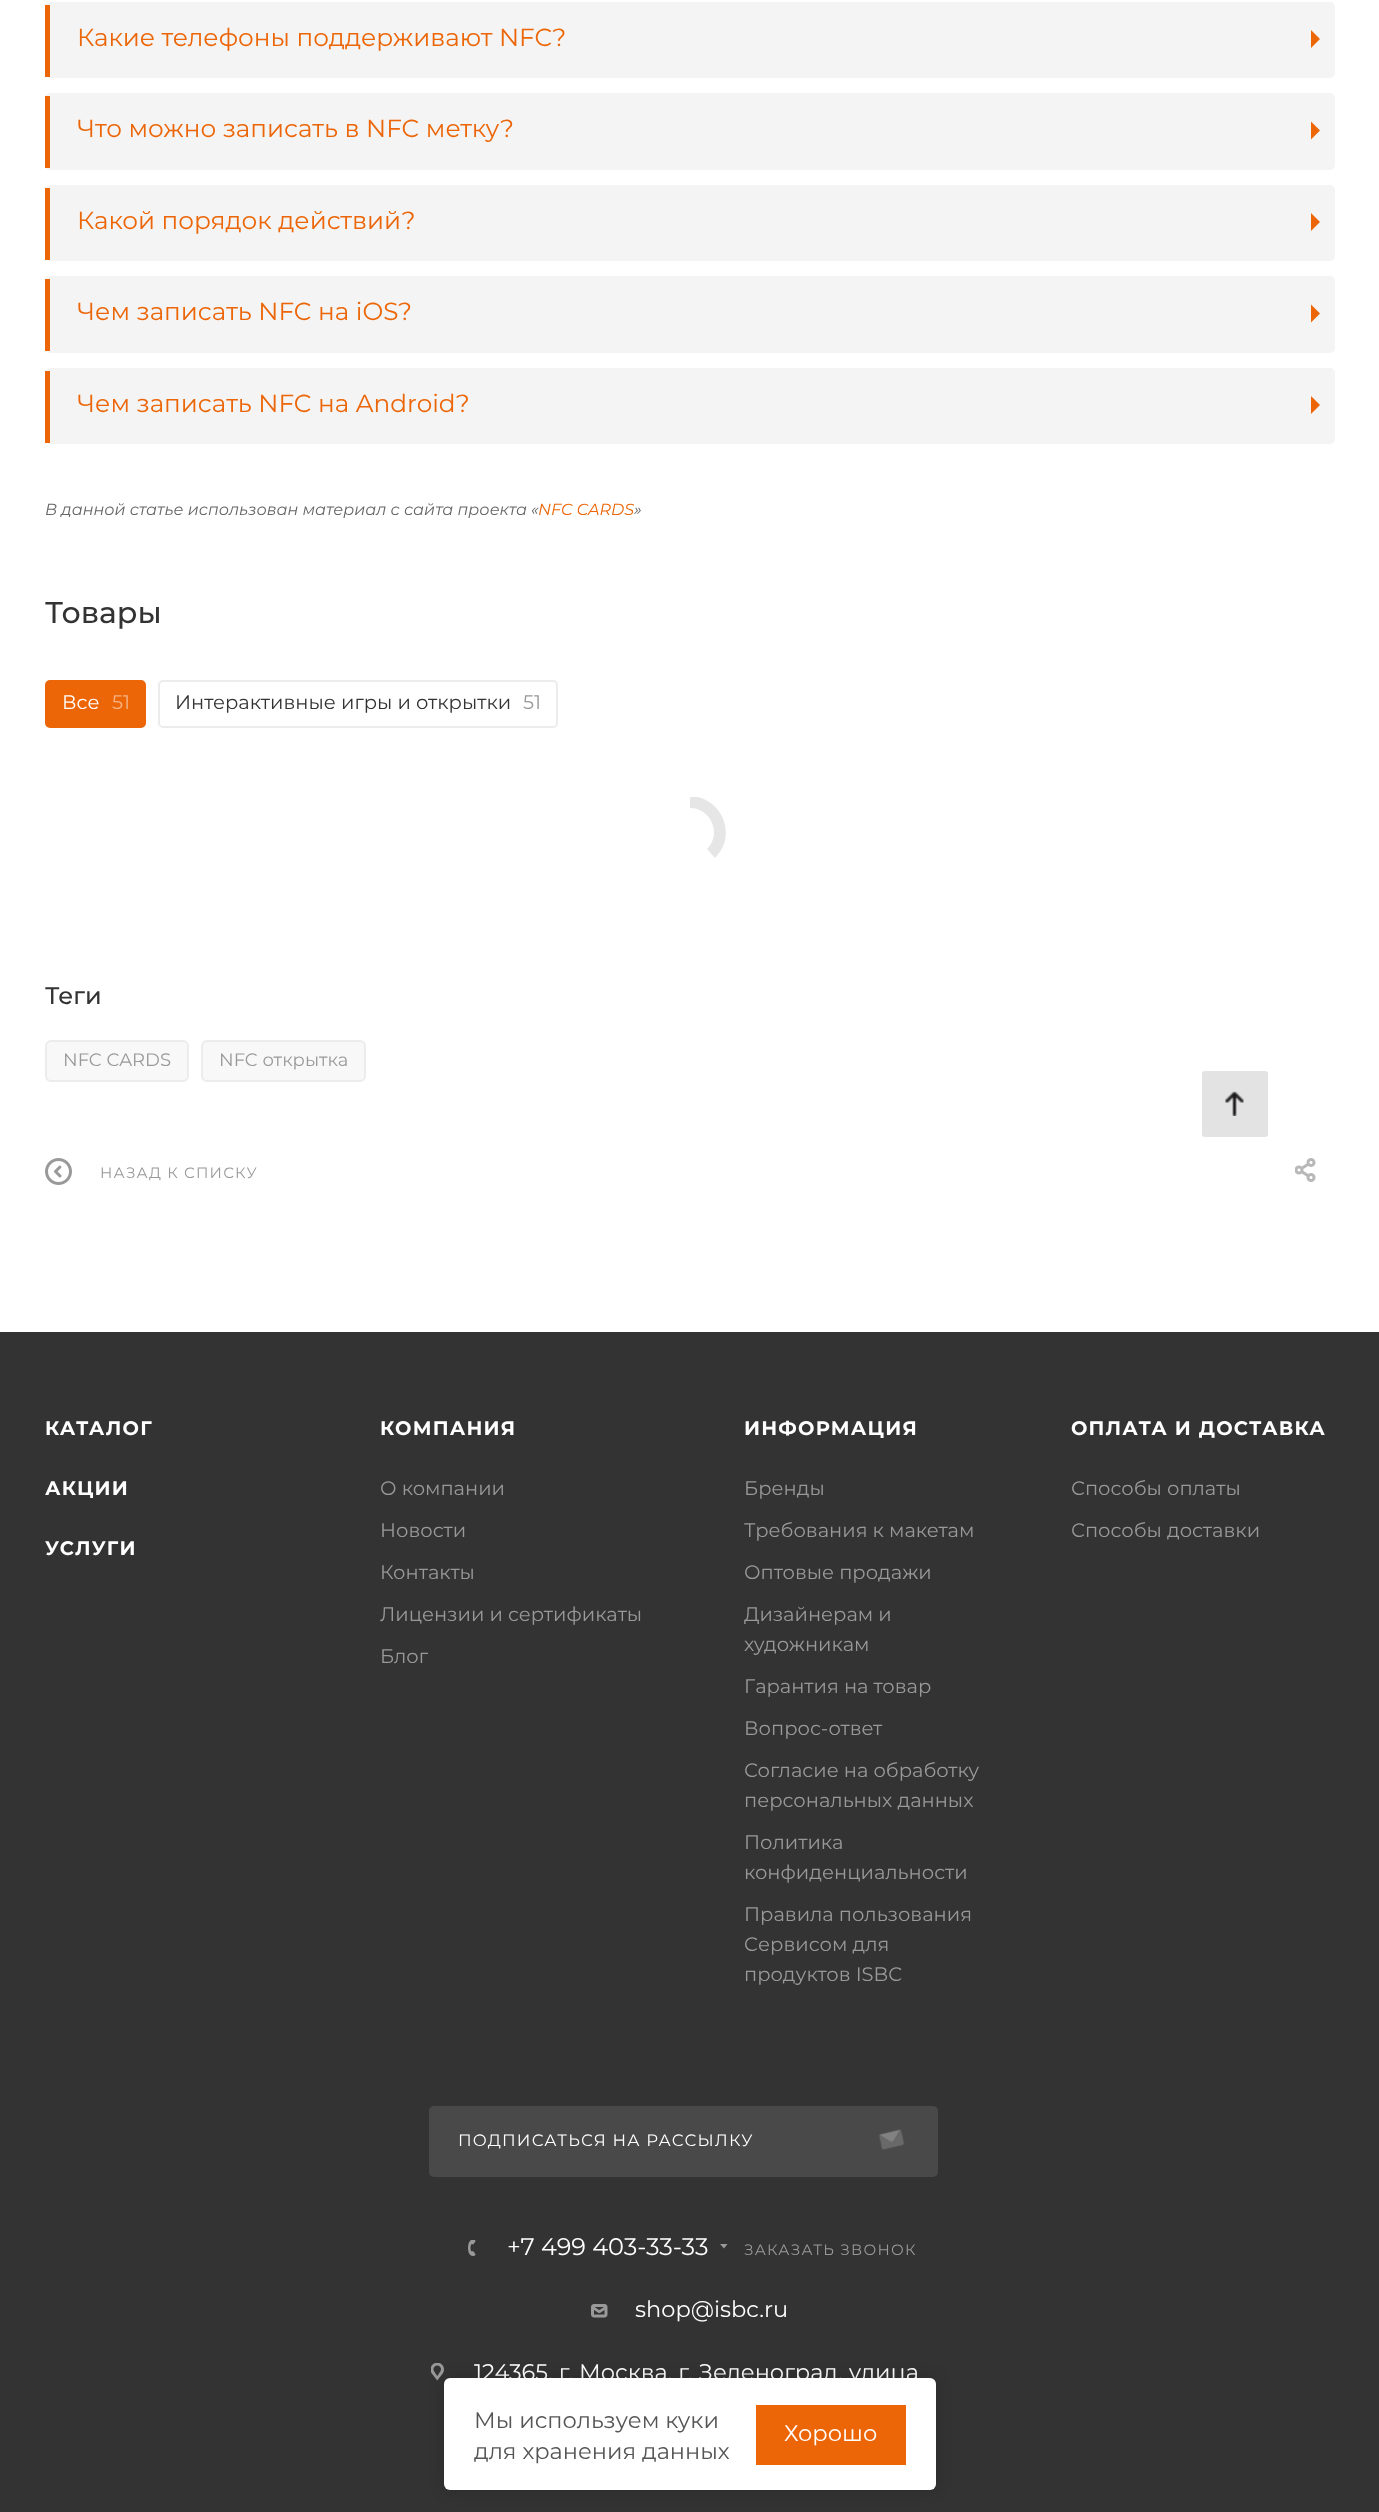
<svg xmlns="http://www.w3.org/2000/svg" width="1379" height="2512" viewBox="0 0 1379 2512">
  <defs>
    <clipPath id="clip1"><rect x="654" y="797" width="72" height="72"/></clipPath>
  </defs>
  <rect width="100%" height="100%" fill="rgb(255,255,255)"/>
  <rect x="45" y="2" width="1290" height="76" rx="5" fill="rgb(244,244,244)"/>
  <rect x="45" y="5" width="5" height="72" fill="rgb(236,102,8)"/>
  <text x="77" y="46" font-family="Montserrat" font-size="24.75" fill="rgb(236,102,8)">Какие телефоны поддерживают NFC?</text>
  <path d="M1311 48V30L1320 39Z" fill="rgb(236,102,8)"/>
  <rect x="45" y="93" width="1290" height="77" rx="5" fill="rgb(244,244,244)"/>
  <rect x="45" y="96" width="5" height="72" fill="rgb(236,102,8)"/>
  <text x="77" y="137" font-family="Montserrat" font-size="24.75" fill="rgb(236,102,8)">Что можно записать в NFC метку?</text>
  <path d="M1311 139.5V121.5L1320 130.5Z" fill="rgb(236,102,8)"/>
  <rect x="45" y="185" width="1290" height="76" rx="5" fill="rgb(244,244,244)"/>
  <rect x="45" y="188" width="5" height="72" fill="rgb(236,102,8)"/>
  <text x="77" y="229" font-family="Montserrat" font-size="24.75" fill="rgb(236,102,8)">Какой порядок действий?</text>
  <path d="M1311 231V213L1320 222Z" fill="rgb(236,102,8)"/>
  <rect x="45" y="276" width="1290" height="77" rx="5" fill="rgb(244,244,244)"/>
  <rect x="45" y="279" width="5" height="72" fill="rgb(236,102,8)"/>
  <text x="77" y="320" font-family="Montserrat" font-size="24.75" fill="rgb(236,102,8)">Чем записать NFC на iOS?</text>
  <path d="M1311 322.5V304.5L1320 313.5Z" fill="rgb(236,102,8)"/>
  <rect x="45" y="368" width="1290" height="76" rx="5" fill="rgb(244,244,244)"/>
  <rect x="45" y="371" width="5" height="72" fill="rgb(236,102,8)"/>
  <text x="77" y="412" font-family="Montserrat" font-size="24.75" fill="rgb(236,102,8)">Чем записать NFC на Android?</text>
  <path d="M1311 414V396L1320 405Z" fill="rgb(236,102,8)"/>
  <text x="45" y="515" font-family="Montserrat" font-size="16" font-style="italic" fill="rgb(102,102,102)">В данной статье использован материал с сайта проекта «</text>
  <text x="538" y="515" font-family="Montserrat" font-size="16" font-style="italic" fill="rgb(236,102,8)">NFC CARDS</text>
  <text x="634" y="515" font-family="Montserrat" font-size="16" font-style="italic" fill="rgb(102,102,102)">»</text>
  <text x="45" y="623" font-family="Montserrat" font-size="30" font-weight="500" fill="rgb(51,51,51)">Товары</text>
  <rect x="46" y="681" width="99" height="46" rx="4" fill="rgb(236,102,8)" stroke="rgb(236,102,8)" stroke-width="2"/>
  <text x="62" y="709" font-family="Montserrat" font-size="19.5" fill="rgb(255,255,255)">Все</text>
  <text x="112" y="709" font-family="Montserrat" font-size="19.5" fill="rgb(246,179,132)">51</text>
  <rect x="159" y="681" width="398" height="46" rx="4" fill="none" stroke="rgb(236,236,236)" stroke-width="2"/>
  <text x="175" y="709" font-family="Montserrat" font-size="19.5" fill="rgb(51,51,51)">Интерактивные игры и открытки</text>
  <text x="523" y="709" font-family="Montserrat" font-size="19.5" fill="rgb(153,153,153)">51</text>
  <g clip-path="url(#clip1)">
    <path d="M690 796C722 797 738 835 715 858L707 849C722 834 711 808 690 808Z" fill="rgb(230,230,230)"/>
  </g>
  <text x="45" y="1004" font-family="Montserrat" font-size="24" font-weight="500" fill="rgb(51,51,51)">Теги</text>
  <rect x="46" y="1041" width="142" height="40" rx="5" fill="rgb(248,248,248)" stroke="rgb(236,236,236)" stroke-width="2"/>
  <text x="63" y="1066" font-family="Montserrat" font-size="18" fill="rgb(153,153,153)">NFC CARDS</text>
  <rect x="202" y="1041" width="163" height="40" rx="5" fill="rgb(248,248,248)" stroke="rgb(236,236,236)" stroke-width="2"/>
  <text x="219" y="1066" font-family="Montserrat" font-size="18" fill="rgb(153,153,153)">NFC открытка</text>
  <image x="45" y="1158" width="27" height="27" href="pic1.png"/>
  <text x="100" y="1178" font-family="Montserrat" font-size="15" letter-spacing="1.2" fill="rgb(153,153,153)">НАЗАД К СПИСКУ</text>
  <image x="1295" y="1158" width="21" height="24" href="pic2.png"/>
  <rect x="1202" y="1071" width="66" height="66" rx="3" fill="rgb(227,227,227)"/>
  <image x="1225" y="1091" width="19" height="25" href="pic3.png"/>
  <rect x="0" y="1332" width="1379" height="1180" fill="rgb(51,51,51)"/>
  <g font-family="Montserrat" font-size="19.5" font-weight="bold" letter-spacing="1.2" fill="rgb(255,255,255)">
    <text x="45" y="1435">КАТАЛОГ</text>
    <text x="45" y="1495">АКЦИИ</text>
    <text x="45" y="1555">УСЛУГИ</text>
    <text x="380" y="1435">КОМПАНИЯ</text>
  </g>
  <g font-family="Montserrat" font-size="19.5" fill="rgb(153,153,153)">
    <text x="380" y="1495">О компании</text>
    <text x="380" y="1537">Новости</text>
    <text x="380" y="1579">Контакты</text>
    <text x="380" y="1621">Лицензии и сертификаты</text>
    <text x="380" y="1663">Блог</text>
  </g>
  <text x="744" y="1435" font-family="Montserrat" font-size="19.5" font-weight="bold" letter-spacing="1.2" fill="rgb(255,255,255)">ИНФОРМАЦИЯ</text>
  <g font-family="Montserrat" font-size="19.5" fill="rgb(153,153,153)">
    <text x="744" y="1495">Бренды</text>
    <text x="744" y="1537">Требования к макетам</text>
    <text x="744" y="1579">Оптовые продажи</text>
    <text>
      <tspan x="744" y="1621">Дизайнерам и</tspan>
      <tspan x="744" y="1651">художникам</tspan>
    </text>
    <text x="744" y="1693">Гарантия на товар</text>
    <text x="744" y="1735">Вопрос-ответ</text>
    <text>
      <tspan x="744" y="1777">Согласие на обработку</tspan>
      <tspan x="744" y="1807">персональных данных</tspan>
    </text>
    <text>
      <tspan x="744" y="1849">Политика</tspan>
      <tspan x="744" y="1879">конфиденциальности</tspan>
    </text>
    <text>
      <tspan x="744" y="1921">Правила пользования</tspan>
      <tspan x="744" y="1951">Cервисом для</tspan>
      <tspan x="744" y="1981">продуктов ISBC</tspan>
    </text>
  </g>
  <text x="1071" y="1435" font-family="Montserrat" font-size="19.5" font-weight="bold" letter-spacing="1.2" fill="rgb(255,255,255)">ОПЛАТА И ДОСТАВКА</text>
  <g font-family="Montserrat" font-size="19.5" fill="rgb(153,153,153)">
    <text x="1071" y="1495">Способы оплаты</text>
    <text x="1071" y="1537">Способы доставки</text>
  </g>
  <rect x="430" y="2107" width="507" height="69" rx="4" fill="rgb(73,73,73)" stroke="rgb(73,73,73)" stroke-width="2"/>
  <text x="458" y="2146" font-family="Montserrat" font-size="16.5" letter-spacing="1.2" fill="rgb(255,255,255)">ПОДПИСАТЬСЯ НА РАССЫЛКУ</text>
  <image x="878" y="2129" width="27" height="21" href="pic4.png"/>
  <image x="468" y="2240" width="8" height="16" href="pic5.png"/>
  <text x="507" y="2255" font-family="Montserrat" font-size="24" fill="rgb(255,255,255)">+7 499 403-33-33</text>
  <path d="M720 2244H727.5L724 2248.5Z" fill="rgb(153,153,153)" fill-rule="evenodd"/>
  <text x="744" y="2255" font-family="Montserrat" font-size="15" letter-spacing="1.2" fill="rgb(153,153,153)">ЗАКАЗАТЬ ЗВОНОК</text>
  <image x="591" y="2304" width="17" height="14" href="pic6.png"/>
  <text x="635" y="2317" font-family="Montserrat" font-size="22.5" fill="rgb(255,255,255)">shop@isbc.ru</text>
  <image x="431" y="2363" width="13" height="18" href="pic7.png"/>
  <text x="474" y="2380" font-family="Montserrat" font-size="22.5" fill="rgb(255,255,255)">124365, г. Москва, г. Зеленоград, улица</text>
  <rect x="444" y="2378" width="492" height="112" rx="6" fill="rgba(0,0,0,0.18)" filter="blur(7.5px)"/>
  <rect x="444" y="2378" width="492" height="112" rx="6" fill="rgb(255,255,255)"/>
  <g font-family="Montserrat" font-size="22.5" fill="rgb(85,85,85)">
    <text>
      <tspan x="474" y="2428">Мы используем куки</tspan>
      <tspan x="474" y="2459">для хранения данных</tspan>
    </text>
  </g>
  <rect x="756" y="2405" width="150" height="60" fill="rgb(236,102,8)"/>
  <text x="784" y="2441" font-family="Montserrat" font-size="22.5" fill="rgb(255,255,255)">Хорошо</text>
</svg>
